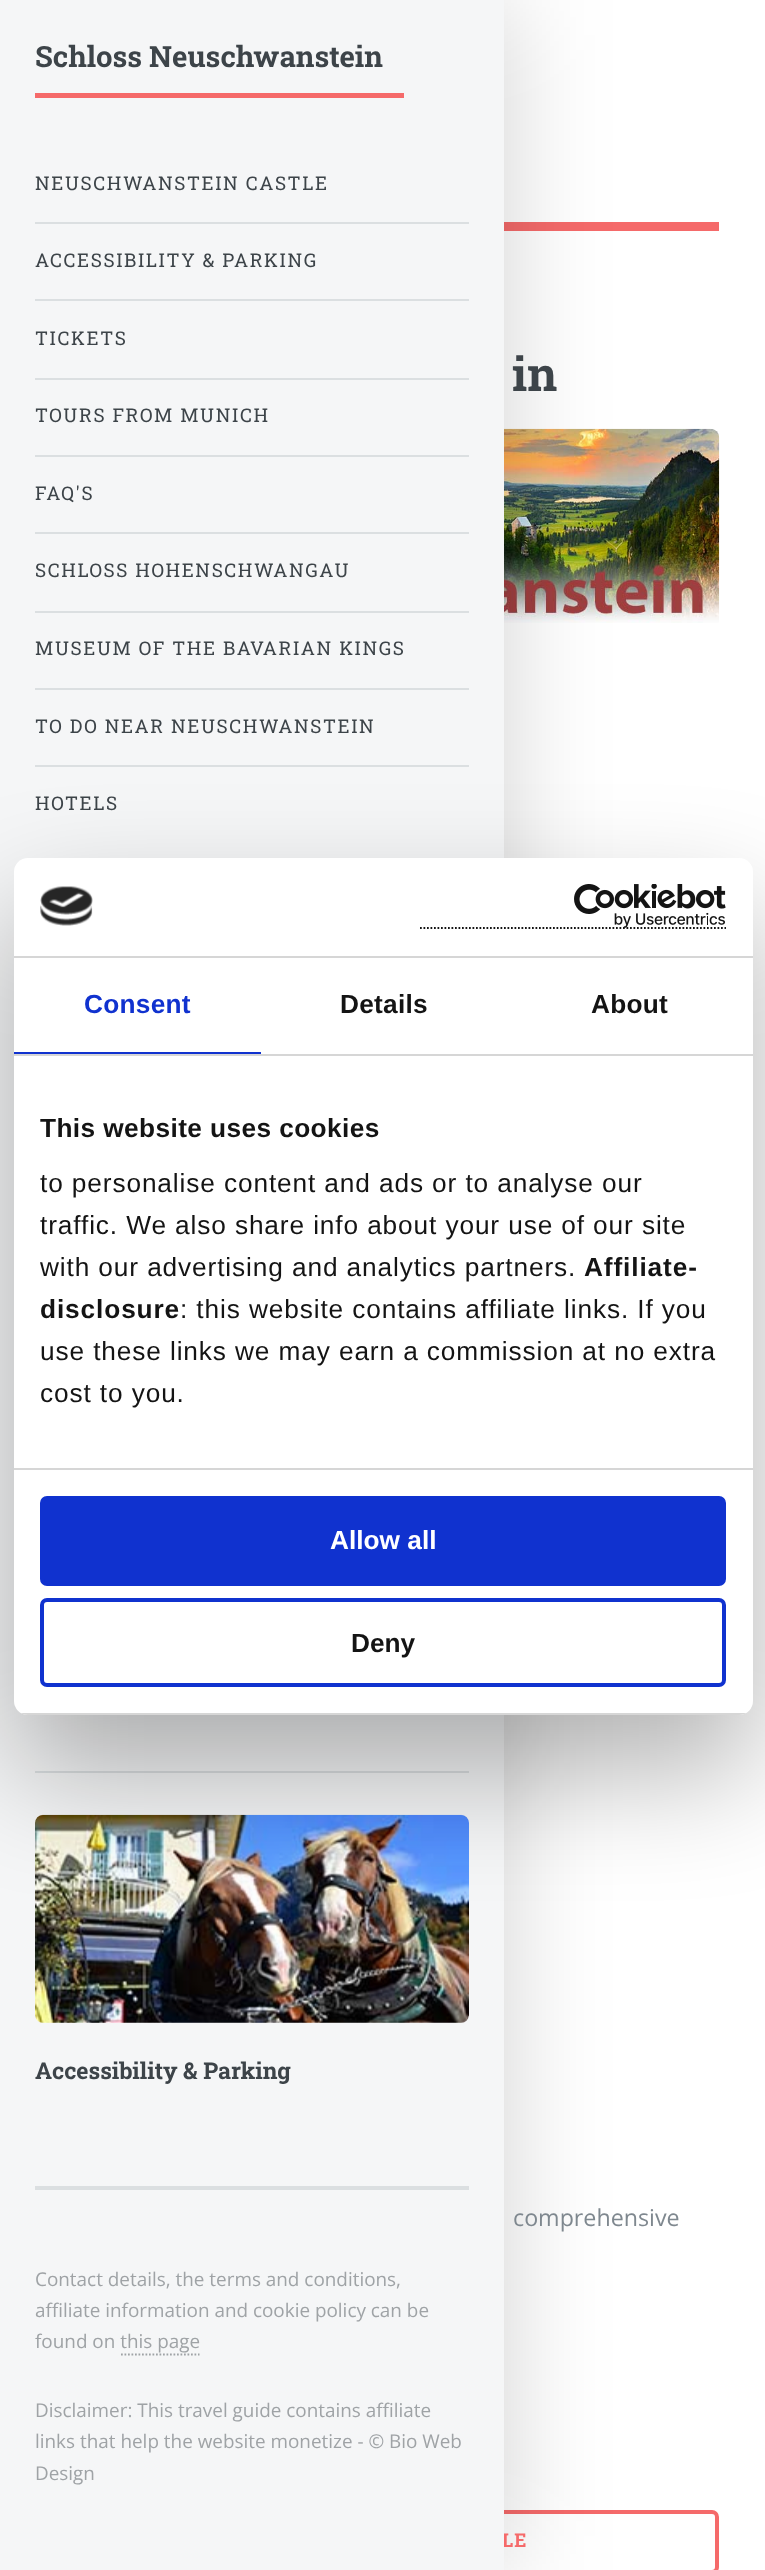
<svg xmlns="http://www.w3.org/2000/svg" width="765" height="2570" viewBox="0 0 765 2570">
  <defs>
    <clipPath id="clip1"><rect x="14" y="858" width="739" height="857" rx="14"/></clipPath>
  </defs>
  <rect width="100%" height="100%" fill="rgb(255,255,255)"/>
  <rect x="504" y="222" width="215" height="9" fill="rgb(245,106,106)"/>
  <image x="504" y="428" width="216" height="195" href="pic2.png"/>
  <rect x="49" y="2512" width="668" height="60" rx="5" fill="none" stroke="rgb(245,106,106)" stroke-width="4"/>
  <rect x="0" y="0" width="504" height="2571" fill="rgba(0,0,0,0.18)" filter="blur(52.5px)"/>
  <text x="502" y="2547" font-family="Roboto Slab" font-size="19" font-weight="bold" letter-spacing="1" fill="rgb(245,106,106)">LE</text>
  <rect x="0" y="0" width="504" height="2570" fill="rgb(245,246,247)"/>
  <rect x="35" y="93" width="369" height="5" fill="rgb(245,106,106)"/>
  <text x="35" y="67" font-family="Roboto Slab" font-size="29.25" font-weight="bold" fill="rgb(61,68,73)">Schloss Neuschwanstein</text>
  <text x="35" y="190" font-family="Roboto Slab" font-size="18.9" letter-spacing="1.6" fill="rgb(61,68,73)">NEUSCHWANSTEIN CASTLE</text>
  <rect x="35" y="222" width="434" height="2" fill="rgb(219,223,225)"/>
  <text x="35" y="267" font-family="Roboto Slab" font-size="18.9" letter-spacing="1.6" fill="rgb(61,68,73)">ACCESSIBILITY &amp; PARKING</text>
  <rect x="35" y="299" width="434" height="2" fill="rgb(219,223,225)"/>
  <text x="35" y="345" font-family="Roboto Slab" font-size="18.9" letter-spacing="1.6" fill="rgb(61,68,73)">TICKETS</text>
  <rect x="35" y="378" width="434" height="2" fill="rgb(219,223,225)"/>
  <text x="35" y="422" font-family="Roboto Slab" font-size="18.9" letter-spacing="1.6" fill="rgb(61,68,73)">TOURS FROM MUNICH</text>
  <rect x="35" y="455" width="434" height="2" fill="rgb(219,223,225)"/>
  <text x="35" y="500" font-family="Roboto Slab" font-size="18.9" letter-spacing="1.6" fill="rgb(61,68,73)">FAQ'S</text>
  <rect x="35" y="532" width="434" height="2" fill="rgb(219,223,225)"/>
  <text x="35" y="577" font-family="Roboto Slab" font-size="18.9" letter-spacing="1.6" fill="rgb(61,68,73)">SCHLOSS HOHENSCHWANGAU</text>
  <rect x="35" y="611" width="434" height="2" fill="rgb(219,223,225)"/>
  <text x="35" y="655" font-family="Roboto Slab" font-size="18.9" letter-spacing="1.6" fill="rgb(61,68,73)">MUSEUM OF THE BAVARIAN KINGS</text>
  <rect x="35" y="688" width="434" height="2" fill="rgb(219,223,225)"/>
  <text x="35" y="733" font-family="Roboto Slab" font-size="18.9" letter-spacing="1.6" fill="rgb(61,68,73)">TO DO NEAR NEUSCHWANSTEIN</text>
  <rect x="35" y="765" width="434" height="2" fill="rgb(219,223,225)"/>
  <text x="35" y="810" font-family="Roboto Slab" font-size="18.9" letter-spacing="1.6" fill="rgb(61,68,73)">HOTELS</text>
  <rect x="35" y="2186" width="434" height="4" fill="rgb(219,223,225)"/>
  <rect x="35" y="1771" width="434" height="2" fill="rgb(219,223,225)"/>
  <image x="35" y="1814" width="434" height="209" href="pic1.png"/>
  <text x="35" y="2079" font-family="Roboto Slab" font-size="23.1" font-weight="bold" fill="rgb(61,68,73)">Accessibility &amp; Parking</text>
  <g font-family="Open Sans" font-size="18.9" fill="rgb(159,163,166)">
    <text>
      <tspan x="35" y="2286">Contact details, the terms and conditions,</tspan>
      <tspan x="35" y="2317">affiliate information and cookie policy can be</tspan>
      <tspan x="35" y="2348">found on this page</tspan>
    </text>
  </g>
  <path d="M121 2354.5H199.5" fill="none" stroke="rgb(159,163,166)" stroke-width="1.8" stroke-dasharray="1.75 1.75"/>
  <g font-family="Open Sans" font-size="18.9" fill="rgb(159,163,166)">
    <text>
      <tspan x="35" y="2417">Disclaimer: This travel guide contains affiliate</tspan>
      <tspan x="35" y="2448">links that help the website monetize - © Bio Web</tspan>
      <tspan x="35" y="2480">Design</tspan>
    </text>
  </g>
  <text x="512" y="391" font-family="Roboto Slab" font-size="47" font-weight="bold" fill="rgb(61,68,73)">in</text>
  <text x="513" y="2226" font-family="Open Sans" font-size="23.25" fill="rgb(127,136,143)">comprehensive</text>
  <rect x="14" y="914" width="739" height="857" rx="14" fill="rgba(0,0,0,0.3)" filter="blur(59.5px)"/>
  <rect x="14" y="858" width="739" height="857" rx="14" fill="rgb(255,255,255)"/>
  <rect x="14" y="956" width="739" height="2" fill="rgb(214,214,214)"/>
  <image x="40" y="886" width="53" height="40" href="pic3.png"/>
  <path d="M420 928H726" fill="none" stroke="rgb(20,20,20)" stroke-width="1.8" stroke-dasharray="1.75 1.75"/>
  <image x="574" y="884" width="152" height="44" href="pic4.png"/>
  <rect x="14" y="1054" width="739" height="2" fill="rgb(214,214,214)"/>
  <rect x="14" y="1052" width="247" height="2" fill="rgb(16,50,207)"/>
  <text x="84" y="1013" font-family="Liberation Sans" font-size="26.25" font-weight="bold" letter-spacing="0.25" fill="rgb(16,50,207)">Consent</text>
  <g font-family="Liberation Sans" font-size="26.25" font-weight="bold" letter-spacing="0.25" fill="rgb(20,20,20)">
    <text x="340" y="1013">Details</text>
    <text x="591" y="1013">About</text>
  </g>
  <rect x="14" y="1468" width="739" height="2" fill="rgb(214,214,214)"/>
  <text x="40" y="1137" font-family="Liberation Sans" font-size="26.25" font-weight="bold" letter-spacing="0.4" fill="rgb(20,20,20)">This website uses cookies</text>
  <g font-family="Liberation Sans" font-size="26.25" letter-spacing="0.88" fill="rgb(20,20,20)">
    <text>
      <tspan x="40" y="1192">to personalise content and ads or to analyse our</tspan>
      <tspan x="40" y="1234">traffic. We also share info about your use of our site</tspan>
      <tspan x="40" y="1276">with our advertising and analytics partners.</tspan>
    </text>
  </g>
  <g font-family="Liberation Sans" font-size="26.25" font-weight="bold" letter-spacing="0.88" fill="rgb(20,20,20)">
    <text x="584" y="1276">Affiliate-</text>
    <text x="40" y="1318">disclosure</text>
  </g>
  <g font-family="Liberation Sans" font-size="26.25" letter-spacing="0.88" fill="rgb(20,20,20)">
    <text x="180" y="1318">: this website contains affiliate links. If you</text>
    <text>
      <tspan x="40" y="1360">use these links we may earn a commission at no extra</tspan>
      <tspan x="40" y="1402">cost to you.</tspan>
    </text>
  </g>
  <g clip-path="url(#clip1)">
    <rect x="14" y="1713" width="739" height="2" fill="rgb(214,214,214)"/>
  </g>
  <rect x="42" y="1498" width="682" height="86" rx="5" fill="rgb(16,50,207)" stroke="rgb(16,50,207)" stroke-width="4"/>
  <text x="330" y="1549" font-family="Liberation Sans" font-size="26.25" font-weight="bold" fill="rgb(255,255,255)">Allow all</text>
  <rect x="42" y="1600" width="682" height="85" rx="5" fill="none" stroke="rgb(16,50,207)" stroke-width="4"/>
  <text x="351" y="1652" font-family="Liberation Sans" font-size="26.25" font-weight="bold" fill="rgb(20,20,20)">Deny</text>
</svg>
